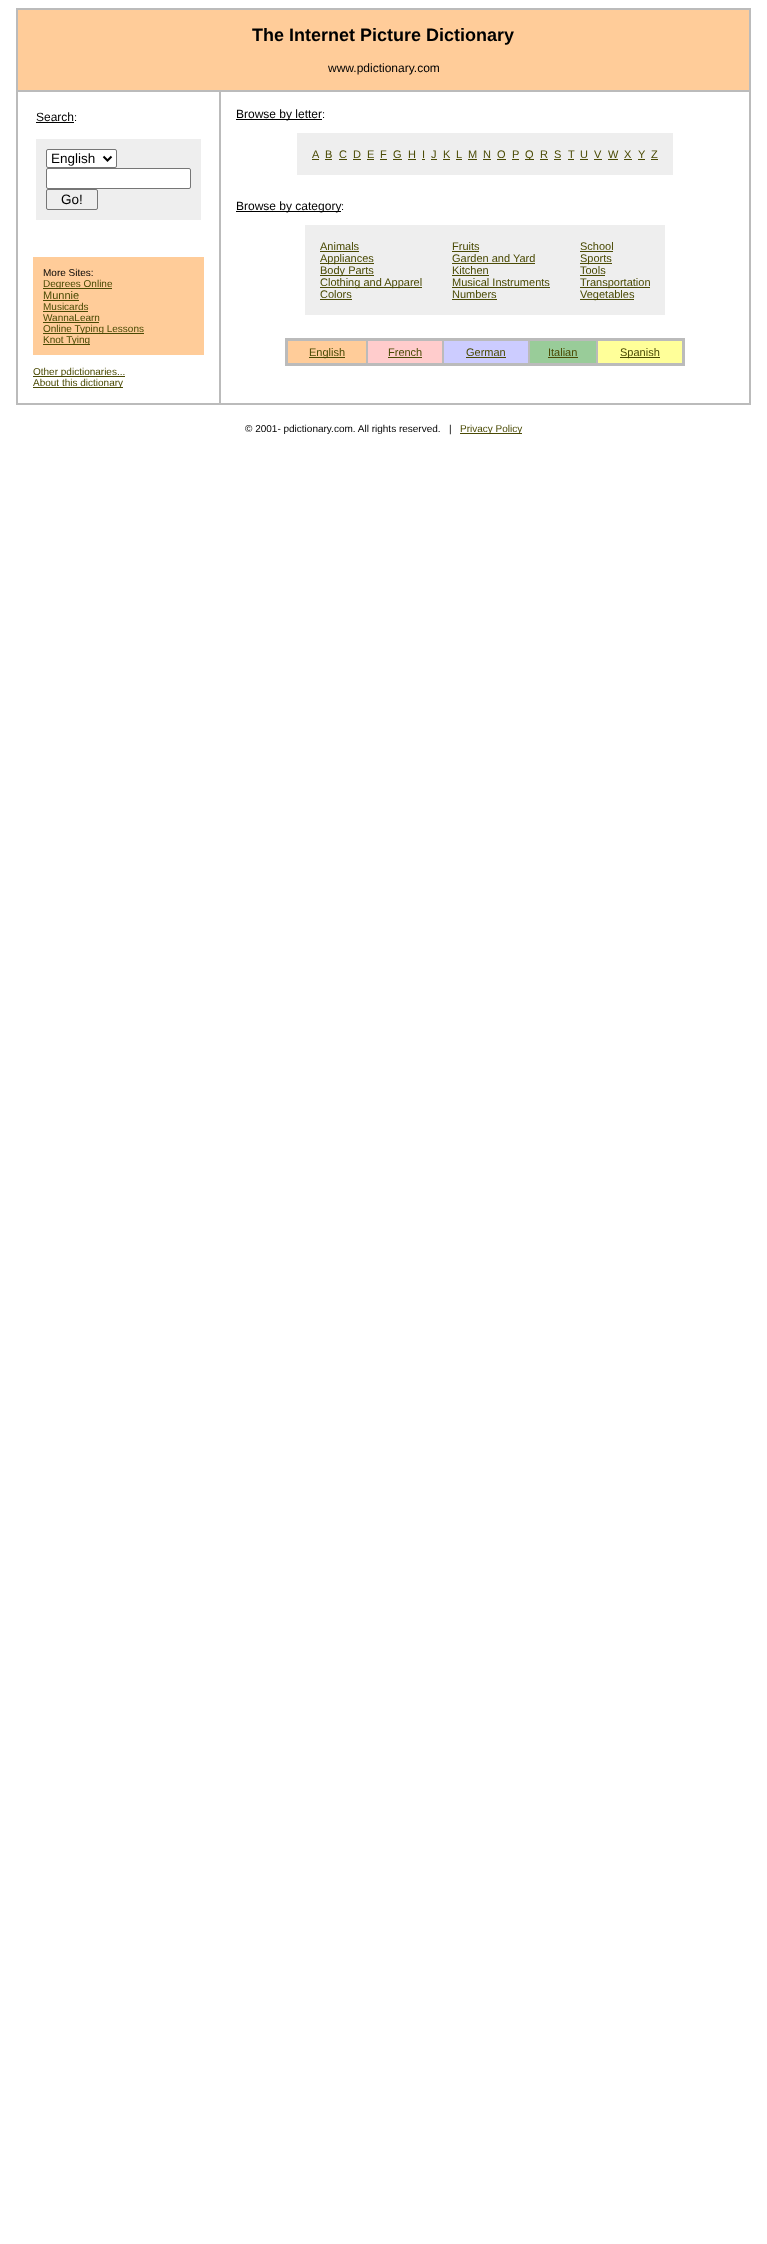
<svg xmlns="http://www.w3.org/2000/svg" width="767" height="2244" viewBox="0 0 767 2244">
  <rect width="100%" height="100%" fill="rgb(255,255,255)"/>
  <rect x="16.5" y="8.5" width="734" height="396" fill="none" stroke="rgb(187,187,187)"/>
  <rect x="17.5" y="9.5" width="732" height="81" fill="rgb(255,204,153)" stroke="rgb(187,187,187)"/>
  <text x="252" y="41" font-family="Liberation Sans" font-size="18" font-weight="bold" fill="rgb(0,0,0)">The Internet Picture Dictionary</text>
  <text x="328" y="72" font-family="Liberation Sans" font-size="12" fill="rgb(0,0,0)">www.pdictionary.com</text>
  <rect x="17.5" y="91.5" width="202" height="312" fill="none" stroke="rgb(187,187,187)"/>
  <text x="36" y="121" font-family="Liberation Sans" font-size="12" fill="rgb(0,0,0)">Search</text>
  <rect x="36" y="122" width="38" height="1" fill="rgb(0,0,0)"/>
  <text x="74" y="121" font-family="Liberation Sans" font-size="11" fill="rgb(0,0,0)">:</text>
  <rect x="36" y="139" width="165" height="81" fill="rgb(238,238,238)"/>
  <rect x="46.5" y="149.5" width="70" height="18" rx="1.5" fill="rgb(255,255,255)" stroke="rgb(118,118,118)"/>
  <path d="M103.5 156.5L107.5 160.5L111.5 156.5" fill="none" stroke="rgb(0,0,0)" stroke-width="2"/>
  <text x="51" y="163" font-family="Liberation Sans" font-size="13.5" fill="rgb(0,0,0)">English</text>
  <rect x="46.5" y="168.5" width="144" height="20" rx="1.5" fill="rgb(255,255,255)" stroke="rgb(118,118,118)"/>
  <rect x="46.5" y="189.5" width="51" height="20" rx="1.5" fill="none" stroke="rgb(118,118,118)"/>
  <text x="61" y="204" font-family="Liberation Sans" font-size="13.5" fill="rgb(0,0,0)">Go!</text>
  <rect x="33" y="257" width="171" height="98" fill="rgb(255,204,153)"/>
  <text x="43" y="276" font-family="Liberation Sans" font-size="10" fill="rgb(0,0,0)">More Sites:</text>
  <rect x="43" y="288" width="69" height="1" fill="rgb(74,74,4)"/>
  <text x="43" y="287" font-family="Liberation Sans" font-size="10" fill="rgb(74,74,4)">Degrees Online</text>
  <text x="43" y="299" font-family="Liberation Sans" font-size="11" fill="rgb(74,74,4)">Munnie</text>
  <rect x="43" y="300" width="36" height="1" fill="rgb(74,74,4)"/>
  <text x="43" y="310" font-family="Liberation Sans" font-size="10" fill="rgb(74,74,4)">Musicards</text>
  <rect x="43" y="311" width="45" height="1" fill="rgb(74,74,4)"/>
  <text x="43" y="321" font-family="Liberation Sans" font-size="10" fill="rgb(74,74,4)">WannaLearn</text>
  <rect x="43" y="322" width="56" height="1" fill="rgb(74,74,4)"/>
  <rect x="43" y="333" width="101" height="1" fill="rgb(74,74,4)"/>
  <text x="43" y="332" font-family="Liberation Sans" font-size="10" fill="rgb(74,74,4)">Online Typing Lessons</text>
  <rect x="43" y="344" width="47" height="1" fill="rgb(74,74,4)"/>
  <text x="43" y="343" font-family="Liberation Sans" font-size="10" fill="rgb(74,74,4)">Knot Tying</text>
  <rect x="33" y="376" width="92" height="1" fill="rgb(74,74,4)"/>
  <text x="33" y="375" font-family="Liberation Sans" font-size="10" fill="rgb(74,74,4)">Other pdictionaries...</text>
  <rect x="33" y="387" width="90" height="1" fill="rgb(74,74,4)"/>
  <text x="33" y="386" font-family="Liberation Sans" font-size="10" fill="rgb(74,74,4)">About this dictionary</text>
  <rect x="220.5" y="91.5" width="529" height="312" fill="none" stroke="rgb(187,187,187)"/>
  <rect x="236" y="119" width="86" height="1" fill="rgb(0,0,0)"/>
  <text x="236" y="118" font-family="Liberation Sans" font-size="12" fill="rgb(0,0,0)">Browse by letter</text>
  <text x="322" y="118" font-family="Liberation Sans" font-size="11" fill="rgb(0,0,0)">:</text>
  <rect x="297" y="133" width="376" height="42" fill="rgb(238,238,238)"/>
  <text x="312" y="158" font-family="Liberation Sans" font-size="11" fill="rgb(74,74,4)">A</text>
  <rect x="312" y="159" width="7" height="1" fill="rgb(74,74,4)"/>
  <text x="325" y="158" font-family="Liberation Sans" font-size="11" fill="rgb(74,74,4)">B</text>
  <rect x="325" y="159" width="7" height="1" fill="rgb(74,74,4)"/>
  <text x="339" y="158" font-family="Liberation Sans" font-size="11" fill="rgb(74,74,4)">C</text>
  <rect x="339" y="159" width="8" height="1" fill="rgb(74,74,4)"/>
  <text x="353" y="158" font-family="Liberation Sans" font-size="11" fill="rgb(74,74,4)">D</text>
  <rect x="353" y="159" width="8" height="1" fill="rgb(74,74,4)"/>
  <text x="367" y="158" font-family="Liberation Sans" font-size="11" fill="rgb(74,74,4)">E</text>
  <rect x="367" y="159" width="7" height="1" fill="rgb(74,74,4)"/>
  <text x="380" y="158" font-family="Liberation Sans" font-size="11" fill="rgb(74,74,4)">F</text>
  <rect x="380" y="159" width="7" height="1" fill="rgb(74,74,4)"/>
  <text x="393" y="158" font-family="Liberation Sans" font-size="11" fill="rgb(74,74,4)">G</text>
  <rect x="393" y="159" width="9" height="1" fill="rgb(74,74,4)"/>
  <text x="408" y="158" font-family="Liberation Sans" font-size="11" fill="rgb(74,74,4)">H</text>
  <rect x="408" y="159" width="8" height="1" fill="rgb(74,74,4)"/>
  <text x="422" y="158" font-family="Liberation Sans" font-size="11" fill="rgb(74,74,4)">I</text>
  <rect x="422" y="159" width="3" height="1" fill="rgb(74,74,4)"/>
  <text x="431" y="158" font-family="Liberation Sans" font-size="11" fill="rgb(74,74,4)">J</text>
  <rect x="431" y="159" width="6" height="1" fill="rgb(74,74,4)"/>
  <text x="443" y="158" font-family="Liberation Sans" font-size="11" fill="rgb(74,74,4)">K</text>
  <rect x="443" y="159" width="7" height="1" fill="rgb(74,74,4)"/>
  <text x="456" y="158" font-family="Liberation Sans" font-size="11" fill="rgb(74,74,4)">L</text>
  <rect x="456" y="159" width="6" height="1" fill="rgb(74,74,4)"/>
  <text x="468" y="158" font-family="Liberation Sans" font-size="11" fill="rgb(74,74,4)">M</text>
  <rect x="468" y="159" width="9" height="1" fill="rgb(74,74,4)"/>
  <text x="483" y="158" font-family="Liberation Sans" font-size="11" fill="rgb(74,74,4)">N</text>
  <rect x="483" y="159" width="8" height="1" fill="rgb(74,74,4)"/>
  <text x="497" y="158" font-family="Liberation Sans" font-size="11" fill="rgb(74,74,4)">O</text>
  <rect x="497" y="159" width="9" height="1" fill="rgb(74,74,4)"/>
  <text x="512" y="158" font-family="Liberation Sans" font-size="11" fill="rgb(74,74,4)">P</text>
  <rect x="512" y="159" width="7" height="1" fill="rgb(74,74,4)"/>
  <rect x="525" y="159" width="9" height="1" fill="rgb(74,74,4)"/>
  <g font-family="Liberation Sans" font-size="11" fill="rgb(74,74,4)">
    <text x="525" y="158">Q</text>
    <text x="540" y="158">R</text>
  </g>
  <rect x="540" y="159" width="8" height="1" fill="rgb(74,74,4)"/>
  <text x="554" y="158" font-family="Liberation Sans" font-size="11" fill="rgb(74,74,4)">S</text>
  <rect x="554" y="159" width="7" height="1" fill="rgb(74,74,4)"/>
  <text x="568" y="158" font-family="Liberation Sans" font-size="11" fill="rgb(74,74,4)">T</text>
  <rect x="568" y="159" width="6" height="1" fill="rgb(74,74,4)"/>
  <text x="580" y="158" font-family="Liberation Sans" font-size="11" fill="rgb(74,74,4)">U</text>
  <rect x="580" y="159" width="8" height="1" fill="rgb(74,74,4)"/>
  <text x="594" y="158" font-family="Liberation Sans" font-size="11" fill="rgb(74,74,4)">V</text>
  <rect x="594" y="159" width="8" height="1" fill="rgb(74,74,4)"/>
  <text x="608" y="158" font-family="Liberation Sans" font-size="11" fill="rgb(74,74,4)">W</text>
  <rect x="608" y="159" width="10" height="1" fill="rgb(74,74,4)"/>
  <text x="624" y="158" font-family="Liberation Sans" font-size="11" fill="rgb(74,74,4)">X</text>
  <rect x="624" y="159" width="8" height="1" fill="rgb(74,74,4)"/>
  <text x="638" y="158" font-family="Liberation Sans" font-size="11" fill="rgb(74,74,4)">Y</text>
  <rect x="638" y="159" width="7" height="1" fill="rgb(74,74,4)"/>
  <text x="651" y="158" font-family="Liberation Sans" font-size="11" fill="rgb(74,74,4)">Z</text>
  <rect x="651" y="159" width="7" height="1" fill="rgb(74,74,4)"/>
  <rect x="236" y="211" width="105" height="1" fill="rgb(0,0,0)"/>
  <text x="236" y="210" font-family="Liberation Sans" font-size="12" fill="rgb(0,0,0)">Browse by category</text>
  <text x="341" y="210" font-family="Liberation Sans" font-size="11" fill="rgb(0,0,0)">:</text>
  <rect x="305" y="225" width="360" height="90" fill="rgb(238,238,238)"/>
  <text x="320" y="250" font-family="Liberation Sans" font-size="11" fill="rgb(74,74,4)">Animals</text>
  <rect x="320" y="251" width="39" height="1" fill="rgb(74,74,4)"/>
  <rect x="320" y="263" width="54" height="1" fill="rgb(74,74,4)"/>
  <text x="320" y="262" font-family="Liberation Sans" font-size="11" fill="rgb(74,74,4)">Appliances</text>
  <rect x="320" y="275" width="54" height="1" fill="rgb(74,74,4)"/>
  <text x="320" y="274" font-family="Liberation Sans" font-size="11" fill="rgb(74,74,4)">Body Parts</text>
  <rect x="320" y="287" width="102" height="1" fill="rgb(74,74,4)"/>
  <g font-family="Liberation Sans" font-size="11" fill="rgb(74,74,4)">
    <text>
      <tspan x="320" y="286">Clothing and Apparel</tspan>
      <tspan x="320" y="298">Colors</tspan>
    </text>
  </g>
  <rect x="320" y="299" width="32" height="1" fill="rgb(74,74,4)"/>
  <text x="452" y="250" font-family="Liberation Sans" font-size="11" fill="rgb(74,74,4)">Fruits</text>
  <rect x="452" y="251" width="27" height="1" fill="rgb(74,74,4)"/>
  <text x="452" y="262" font-family="Liberation Sans" font-size="11" fill="rgb(74,74,4)">Garden and Yard</text>
  <rect x="452" y="263" width="83" height="1" fill="rgb(74,74,4)"/>
  <text x="452" y="274" font-family="Liberation Sans" font-size="11" fill="rgb(74,74,4)">Kitchen</text>
  <rect x="452" y="275" width="37" height="1" fill="rgb(74,74,4)"/>
  <text x="452" y="286" font-family="Liberation Sans" font-size="11" fill="rgb(74,74,4)">Musical Instruments</text>
  <rect x="452" y="287" width="98" height="1" fill="rgb(74,74,4)"/>
  <text x="452" y="298" font-family="Liberation Sans" font-size="11" fill="rgb(74,74,4)">Numbers</text>
  <rect x="452" y="299" width="45" height="1" fill="rgb(74,74,4)"/>
  <text x="580" y="250" font-family="Liberation Sans" font-size="11" fill="rgb(74,74,4)">School</text>
  <rect x="580" y="251" width="33" height="1" fill="rgb(74,74,4)"/>
  <rect x="580" y="263" width="32" height="1" fill="rgb(74,74,4)"/>
  <g font-family="Liberation Sans" font-size="11" fill="rgb(74,74,4)">
    <text>
      <tspan x="580" y="262">Sports</tspan>
      <tspan x="580" y="274">Tools</tspan>
    </text>
  </g>
  <rect x="580" y="275" width="25" height="1" fill="rgb(74,74,4)"/>
  <rect x="580" y="287" width="70" height="1" fill="rgb(74,74,4)"/>
  <text x="580" y="286" font-family="Liberation Sans" font-size="11" fill="rgb(74,74,4)">Transportation</text>
  <rect x="580" y="299" width="54" height="1" fill="rgb(74,74,4)"/>
  <text x="580" y="298" font-family="Liberation Sans" font-size="11" fill="rgb(74,74,4)">Vegetables</text>
  <rect x="286" y="339" width="398" height="26" fill="none" stroke="rgb(187,187,187)" stroke-width="2"/>
  <rect x="287.5" y="340.5" width="79" height="23" fill="rgb(255,204,153)" stroke="rgb(187,187,187)"/>
  <rect x="309" y="357" width="36" height="1" fill="rgb(74,74,4)"/>
  <text x="309" y="356" font-family="Liberation Sans" font-size="11" fill="rgb(74,74,4)">English</text>
  <rect x="367.5" y="340.5" width="75" height="23" fill="rgb(255,204,204)" stroke="rgb(187,187,187)"/>
  <text x="388" y="356" font-family="Liberation Sans" font-size="11" fill="rgb(74,74,4)">French</text>
  <rect x="388" y="357" width="34" height="1" fill="rgb(74,74,4)"/>
  <rect x="443.5" y="340.5" width="85" height="23" fill="rgb(204,204,255)" stroke="rgb(187,187,187)"/>
  <text x="466" y="356" font-family="Liberation Sans" font-size="11" fill="rgb(74,74,4)">German</text>
  <rect x="466" y="357" width="40" height="1" fill="rgb(74,74,4)"/>
  <rect x="529.5" y="340.5" width="67" height="23" fill="rgb(153,204,153)" stroke="rgb(187,187,187)"/>
  <text x="548" y="356" font-family="Liberation Sans" font-size="11" fill="rgb(74,74,4)">Italian</text>
  <rect x="548" y="357" width="30" height="1" fill="rgb(74,74,4)"/>
  <rect x="597.5" y="340.5" width="85" height="23" fill="rgb(255,255,153)" stroke="rgb(187,187,187)"/>
  <rect x="620" y="357" width="40" height="1" fill="rgb(74,74,4)"/>
  <text x="620" y="356" font-family="Liberation Sans" font-size="11" fill="rgb(74,74,4)">Spanish</text>
  <g font-family="Liberation Sans" font-size="10" fill="rgb(0,0,0)">
    <text x="245" y="432">© 2001- pdictionary.com. All rights reserved.</text>
    <text x="449" y="432">|</text>
  </g>
  <rect x="460" y="433" width="62" height="1" fill="rgb(74,74,4)"/>
  <text x="460" y="432" font-family="Liberation Sans" font-size="10" fill="rgb(74,74,4)">Privacy Policy</text>
</svg>
